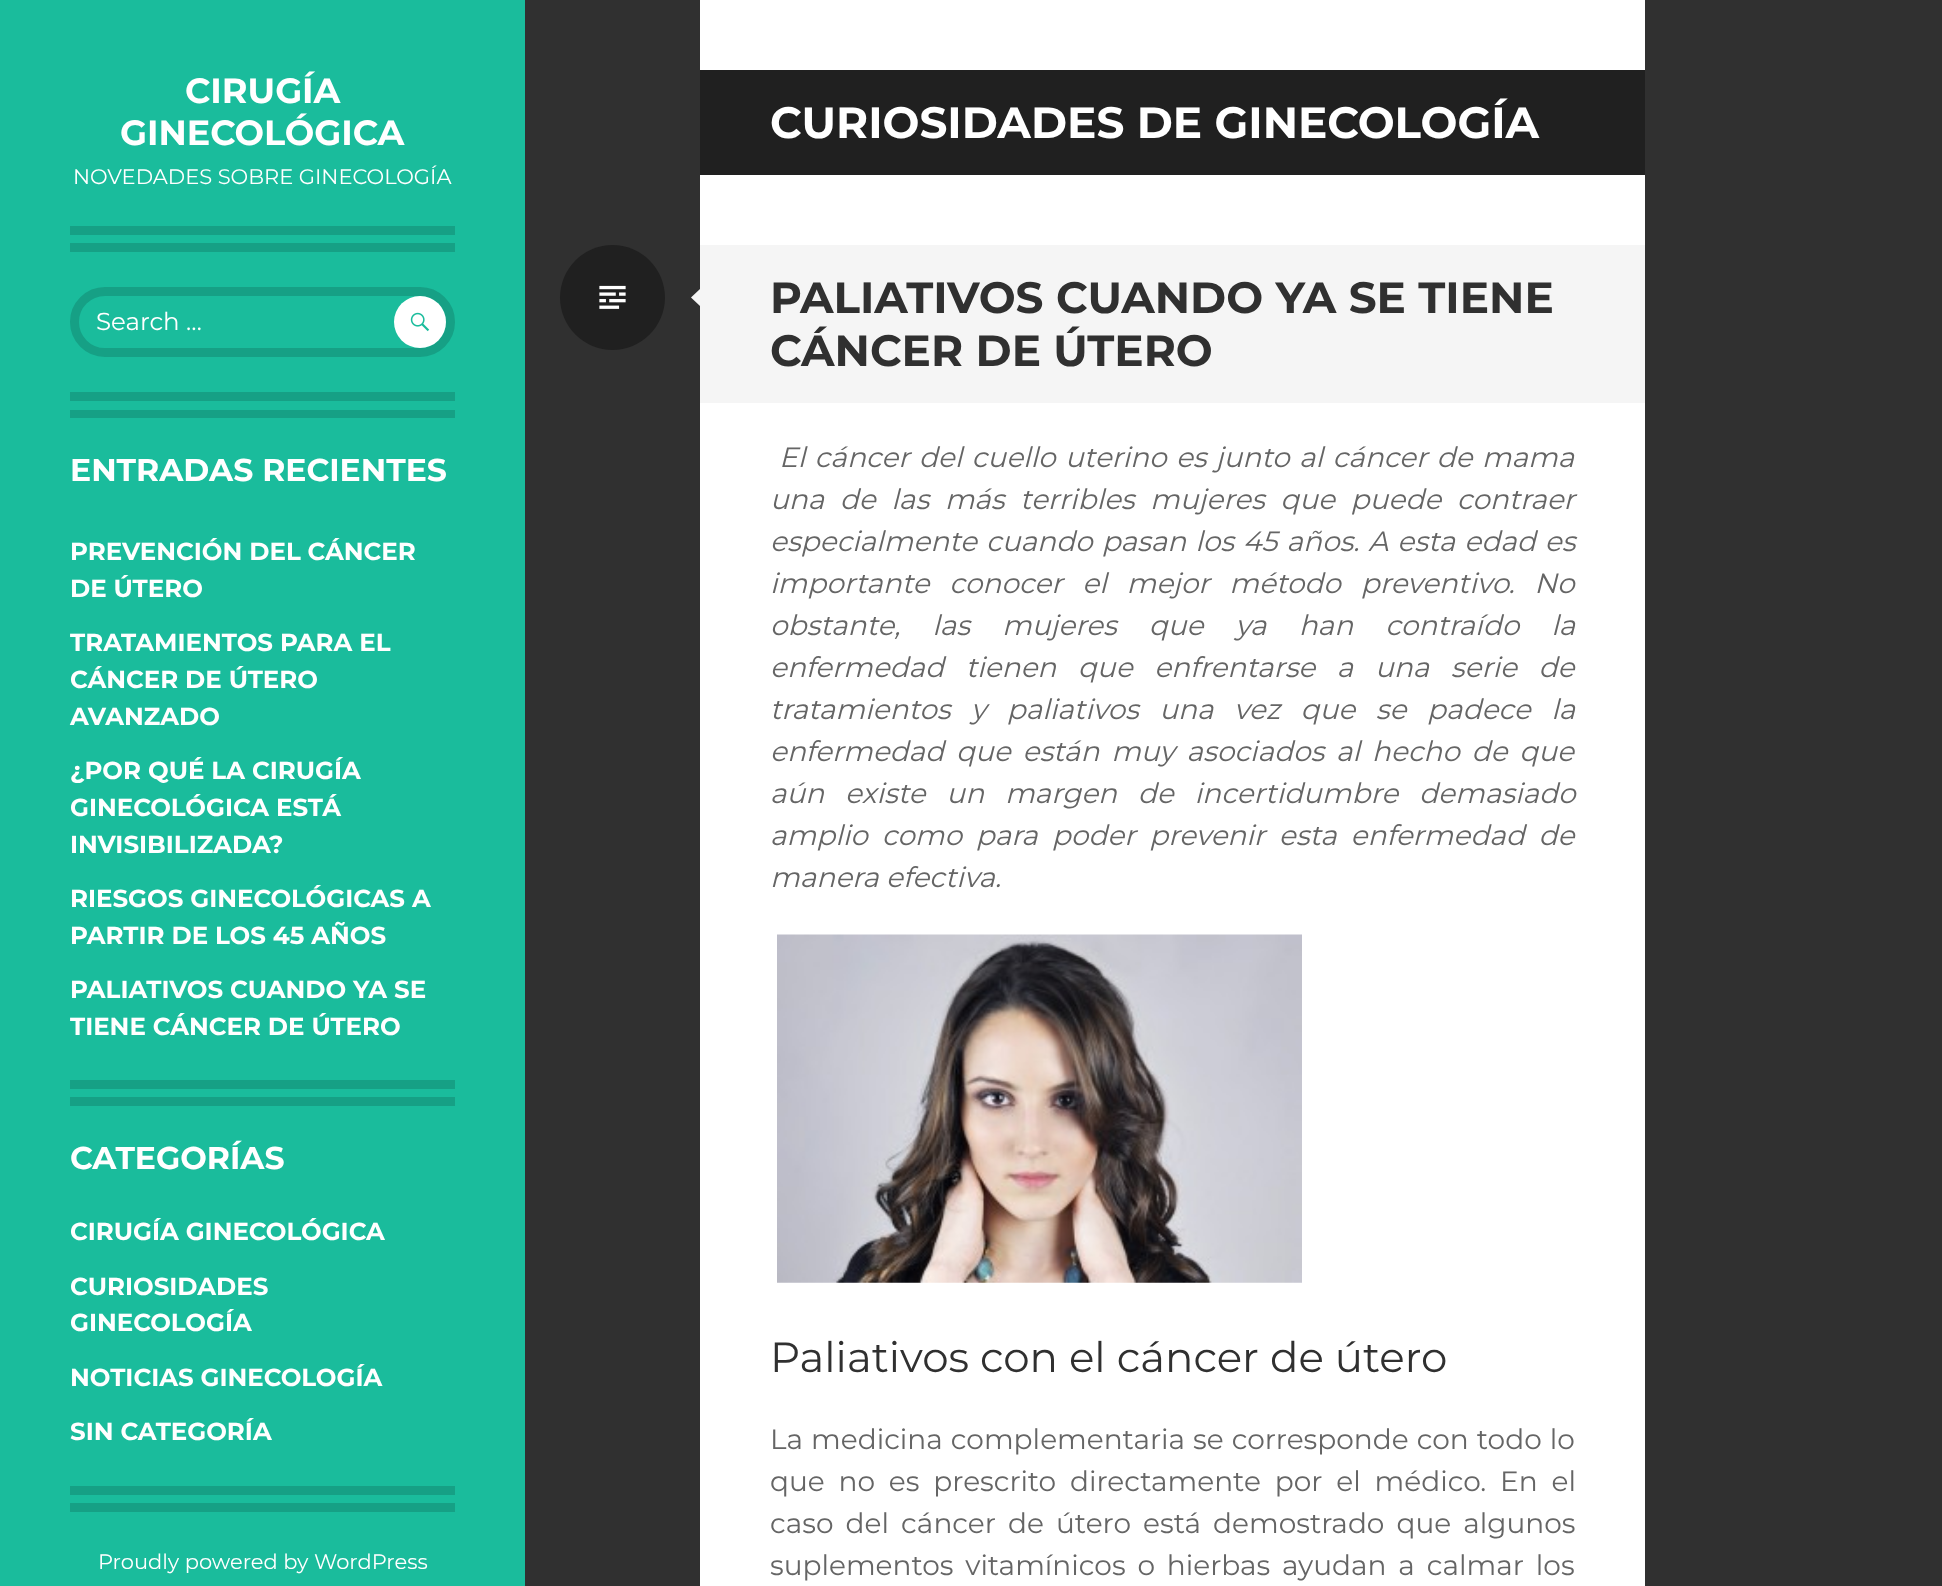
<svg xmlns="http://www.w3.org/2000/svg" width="1942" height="1586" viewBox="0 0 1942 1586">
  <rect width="100%" height="100%" fill="rgb(48,48,48)"/>
  <rect x="0" y="0" width="525" height="1586" fill="rgb(26,188,156)"/>
  <rect x="70" y="226" width="385" height="9" fill="rgb(22,160,133)"/>
  <rect x="70" y="243" width="385" height="9" fill="rgb(22,160,133)"/>
  <g font-family="Montserrat" font-size="35" font-weight="bold" fill="rgb(255,255,255)">
    <text x="185" y="103">CIRUGÍA</text>
    <text x="120" y="145">GINECOLÓGICA</text>
  </g>
  <text x="73" y="184" font-family="Montserrat" font-size="21" fill="rgb(255,255,255)">NOVEDADES SOBRE GINECOLOGÍA</text>
  <rect x="700" y="0" width="945" height="1586" fill="rgb(255,255,255)"/>
  <rect x="70" y="392" width="385" height="9" fill="rgb(22,160,133)"/>
  <rect x="70" y="410" width="385" height="8" fill="rgb(22,160,133)"/>
  <rect x="74.5" y="291.5" width="376" height="61" rx="30.5" fill="none" stroke="rgb(22,160,133)" stroke-width="9"/>
  <text x="96" y="330" font-family="Montserrat" font-size="24.5" fill="rgb(255,255,255)">Search …</text>
  <circle cx="420" cy="322" r="26" fill="rgb(255,255,255)"/>
  <image x="410" y="312" width="20" height="20" href="pic1.png"/>
  <rect x="70" y="1080" width="385" height="9" fill="rgb(22,160,133)"/>
  <rect x="70" y="1097" width="385" height="9" fill="rgb(22,160,133)"/>
  <text x="70" y="481" font-family="Montserrat" font-size="31.5" font-weight="bold" fill="rgb(255,255,255)">ENTRADAS RECIENTES</text>
  <g font-family="Montserrat" font-size="24.5" font-weight="bold" fill="rgb(255,255,255)">
    <text>
      <tspan x="70" y="560">PREVENCIÓN DEL CÁNCER</tspan>
      <tspan x="70" y="597">DE ÚTERO</tspan>
    </text>
    <text>
      <tspan x="70" y="651">TRATAMIENTOS PARA EL</tspan>
      <tspan x="70" y="688">CÁNCER DE ÚTERO</tspan>
      <tspan x="70" y="725">AVANZADO</tspan>
    </text>
    <text>
      <tspan x="70" y="779">¿POR QUÉ LA CIRUGÍA</tspan>
      <tspan x="70" y="816">GINECOLÓGICA ESTÁ</tspan>
      <tspan x="70" y="853">INVISIBILIZADA?</tspan>
    </text>
    <text>
      <tspan x="70" y="907">RIESGOS GINECOLÓGICAS A</tspan>
      <tspan x="70" y="944">PARTIR DE LOS 45 AÑOS</tspan>
    </text>
    <text>
      <tspan x="70" y="998">PALIATIVOS CUANDO YA SE</tspan>
      <tspan x="70" y="1035">TIENE CÁNCER DE ÚTERO</tspan>
    </text>
  </g>
  <rect x="70" y="1486" width="385" height="9" fill="rgb(22,160,133)"/>
  <rect x="70" y="1503" width="385" height="9" fill="rgb(22,160,133)"/>
  <text x="70" y="1169" font-family="Montserrat" font-size="31.5" font-weight="bold" fill="rgb(255,255,255)">CATEGORÍAS</text>
  <g font-family="Montserrat" font-size="24.5" font-weight="bold" fill="rgb(255,255,255)">
    <text x="70" y="1240">CIRUGÍA GINECOLÓGICA</text>
    <text>
      <tspan x="70" y="1295">CURIOSIDADES</tspan>
      <tspan x="70" y="1331">GINECOLOGÍA</tspan>
    </text>
    <text x="70" y="1386">NOTICIAS GINECOLOGÍA</text>
    <text x="70" y="1440">SIN CATEGORÍA</text>
  </g>
  <rect x="700" y="70" width="945" height="105" fill="rgb(32,32,32)"/>
  <text x="770" y="138" font-family="Montserrat" font-size="43.75" font-weight="bold" fill="rgb(255,255,255)">CURIOSIDADES DE GINECOLOGÍA</text>
  <circle cx="612.5" cy="297.5" r="52.5" fill="rgb(32,32,32)"/>
  <image x="599" y="285" width="27" height="24" href="pic2.png"/>
  <rect x="700" y="245" width="945" height="158" fill="rgb(245,245,245)"/>
  <path d="M700 289V306L691 297.5Z" fill="rgb(245,245,245)"/>
  <g font-family="Montserrat" font-size="43.75" font-weight="bold" fill="rgb(48,48,48)">
    <text>
      <tspan x="770" y="313">PALIATIVOS CUANDO YA SE TIENE</tspan>
      <tspan x="770" y="366">CÁNCER DE ÚTERO</tspan>
    </text>
  </g>
  <g font-family="Montserrat" font-size="28" font-style="italic" fill="rgb(101,101,101)">
    <text x="779" y="467" word-spacing="2">El cáncer del cuello uterino es junto al cáncer de mama</text>
    <text>
      <tspan x="770" y="509" word-spacing="8.25">una de las más terribles mujeres que puede contraer</tspan>
      <tspan x="770" y="551" word-spacing="1.75">especialmente cuando pasan los 45 años. A esta edad es</tspan>
      <tspan x="770" y="593" word-spacing="12.5">importante conocer el mejor método preventivo. No</tspan>
      <tspan x="770" y="635" word-spacing="24.75">obstante, las mujeres que ya han contraído la</tspan>
      <tspan x="770" y="677" word-spacing="14.25">enfermedad tienen que enfrentarse a una serie de</tspan>
      <tspan x="770" y="719" word-spacing="13.25">tratamientos y paliativos una vez que se padece la</tspan>
      <tspan x="770" y="761" word-spacing="4.5">enfermedad que están muy asociados al hecho de que</tspan>
      <tspan x="770" y="803" word-spacing="13.5">aún existe un margen de incertidumbre demasiado</tspan>
      <tspan x="770" y="845" word-spacing="6.5">amplio como para poder prevenir esta enfermedad de</tspan>
      <tspan x="770" y="887">manera efectiva.</tspan>
    </text>
  </g>
  <image x="777" y="934" width="525" height="349" href="pic3.png"/>
  <text x="770" y="1372" font-family="Montserrat" font-size="42" fill="rgb(48,48,48)">Paliativos con el cáncer de útero</text>
  <g font-family="Montserrat" font-size="28" fill="rgb(101,101,101)">
    <text>
      <tspan x="770" y="1449" word-spacing="0.75">La medicina complementaria se corresponde con todo lo</tspan>
      <tspan x="770" y="1491" word-spacing="6.5">que no es prescrito directamente por el médico. En el</tspan>
      <tspan x="770" y="1533" word-spacing="4.75">caso del cáncer de útero está demostrado que algunos</tspan>
      <tspan x="770" y="1575" word-spacing="4.5">suplementos vitamínicos o hierbas ayudan a calmar los</tspan>
    </text>
  </g>
  <text x="98" y="1569" font-family="Montserrat" font-size="21" fill="rgb(255,255,255)">Proudly powered by WordPress</text>
</svg>
